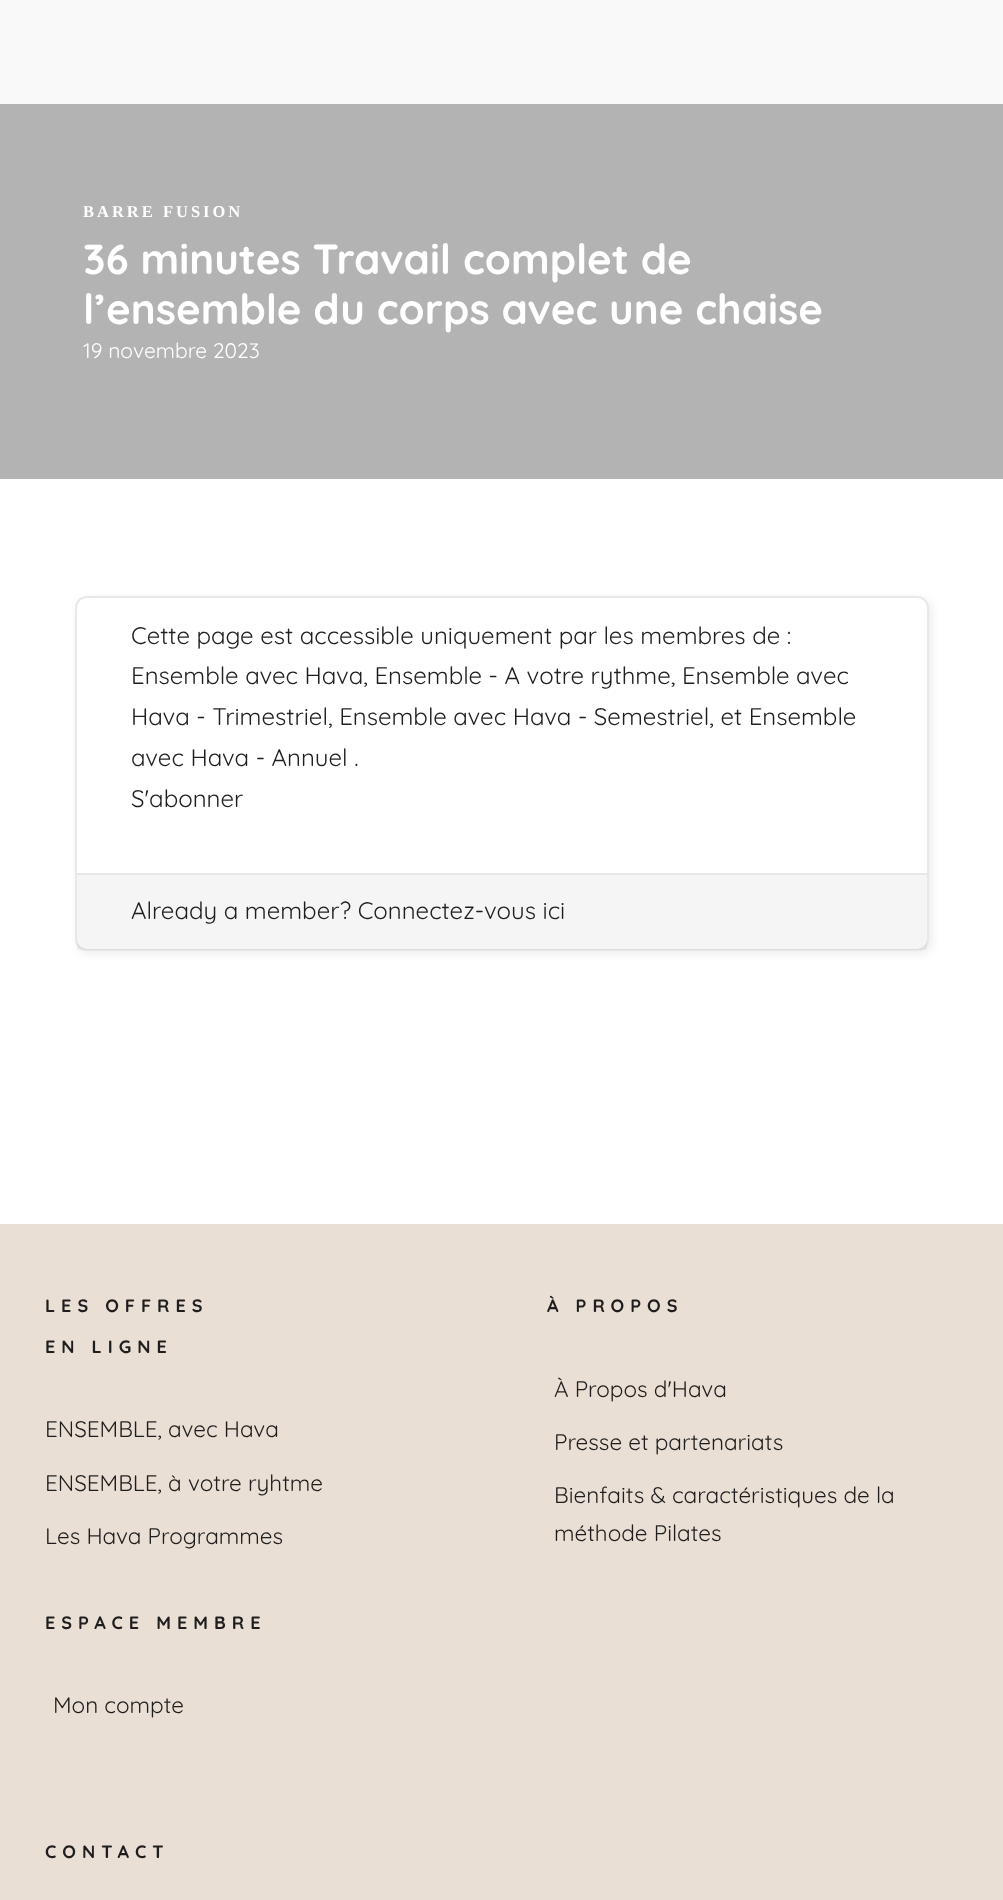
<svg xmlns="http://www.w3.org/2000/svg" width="1003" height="1900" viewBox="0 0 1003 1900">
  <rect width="100%" height="100%" fill="rgb(233,223,212)"/>
  <rect x="0" y="0" width="1003" height="104" fill="rgb(249,249,249)"/>
  <rect x="0" y="104" width="1003" height="375" fill="rgb(179,179,179)"/>
  <text x="83" y="217" font-family="Liberation Serif" font-size="16.5" font-weight="bold" letter-spacing="3" fill="rgb(255,255,255)">BARRE FUSION</text>
  <g font-family="Quicksand" font-size="42" font-weight="bold" fill="rgb(255,255,255)">
    <text>
      <tspan x="83" y="274">36 minutes Travail complet de</tspan>
      <tspan x="83" y="324">l’ensemble du corps avec une chaise</tspan>
    </text>
  </g>
  <text x="83" y="358" font-family="Quicksand" font-size="21" fill="rgb(255,255,255)">19 novembre 2023</text>
  <rect x="0" y="479" width="1003" height="745" fill="rgb(255,255,255)"/>
  <rect x="78" y="599" width="854" height="355" rx="12" fill="rgba(0,0,0,0.07)" filter="blur(5px)"/>
  <rect x="76" y="597" width="852" height="353" rx="11" fill="rgb(255,255,255)" stroke="rgb(232,232,232)" stroke-width="2"/>
  <g font-family="Quicksand" font-size="24" fill="rgb(31,29,29)">
    <text>
      <tspan x="131" y="644">Cette page est accessible uniquement par les membres de :</tspan>
      <tspan x="131" y="684">Ensemble avec Hava, Ensemble - A votre rythme, Ensemble avec</tspan>
      <tspan x="131" y="725">Hava - Trimestriel, Ensemble avec Hava - Semestriel, et Ensemble</tspan>
      <tspan x="131" y="766">avec Hava - Annuel .</tspan>
      <tspan x="131" y="807">S'abonner</tspan>
    </text>
  </g>
  <rect x="77" y="875" width="850" height="75" fill="rgba(0,0,0,0.04)"/>
  <rect x="77" y="873" width="850" height="2" fill="rgb(232,232,232)"/>
  <text x="131" y="919" font-family="Quicksand" font-size="24" fill="rgb(31,29,29)">Already a member? Connectez-vous ici</text>
  <g font-family="Quicksand" font-size="18" font-weight="bold" letter-spacing="6" fill="rgb(31,29,29)">
    <text x="45" y="1312">LES OFFRES</text>
    <text x="45" y="1353">EN LIGNE</text>
  </g>
  <g font-family="Quicksand" font-size="22.5" fill="rgb(31,29,29)">
    <text x="45" y="1437">ENSEMBLE, avec Hava</text>
    <text x="45" y="1491">ENSEMBLE, à votre ryhtme</text>
    <text x="45" y="1544">Les Hava Programmes</text>
  </g>
  <text x="547" y="1312" font-family="Quicksand" font-size="18" font-weight="bold" letter-spacing="6" fill="rgb(31,29,29)">À PROPOS</text>
  <g font-family="Quicksand" font-size="22.5" fill="rgb(31,29,29)">
    <text x="554" y="1397">À Propos d'Hava</text>
    <text x="554" y="1450">Presse et partenariats</text>
    <text>
      <tspan x="554" y="1503">Bienfaits &amp; caractéristiques de la</tspan>
      <tspan x="554" y="1541">méthode Pilates</tspan>
    </text>
  </g>
  <text x="45" y="1629" font-family="Quicksand" font-size="18" font-weight="bold" letter-spacing="6" fill="rgb(31,29,29)">ESPACE MEMBRE</text>
  <text x="53" y="1713" font-family="Quicksand" font-size="22.5" fill="rgb(31,29,29)">Mon compte</text>
  <text x="45" y="1858" font-family="Quicksand" font-size="18" font-weight="bold" letter-spacing="6" fill="rgb(31,29,29)">CONTACT</text>
</svg>
